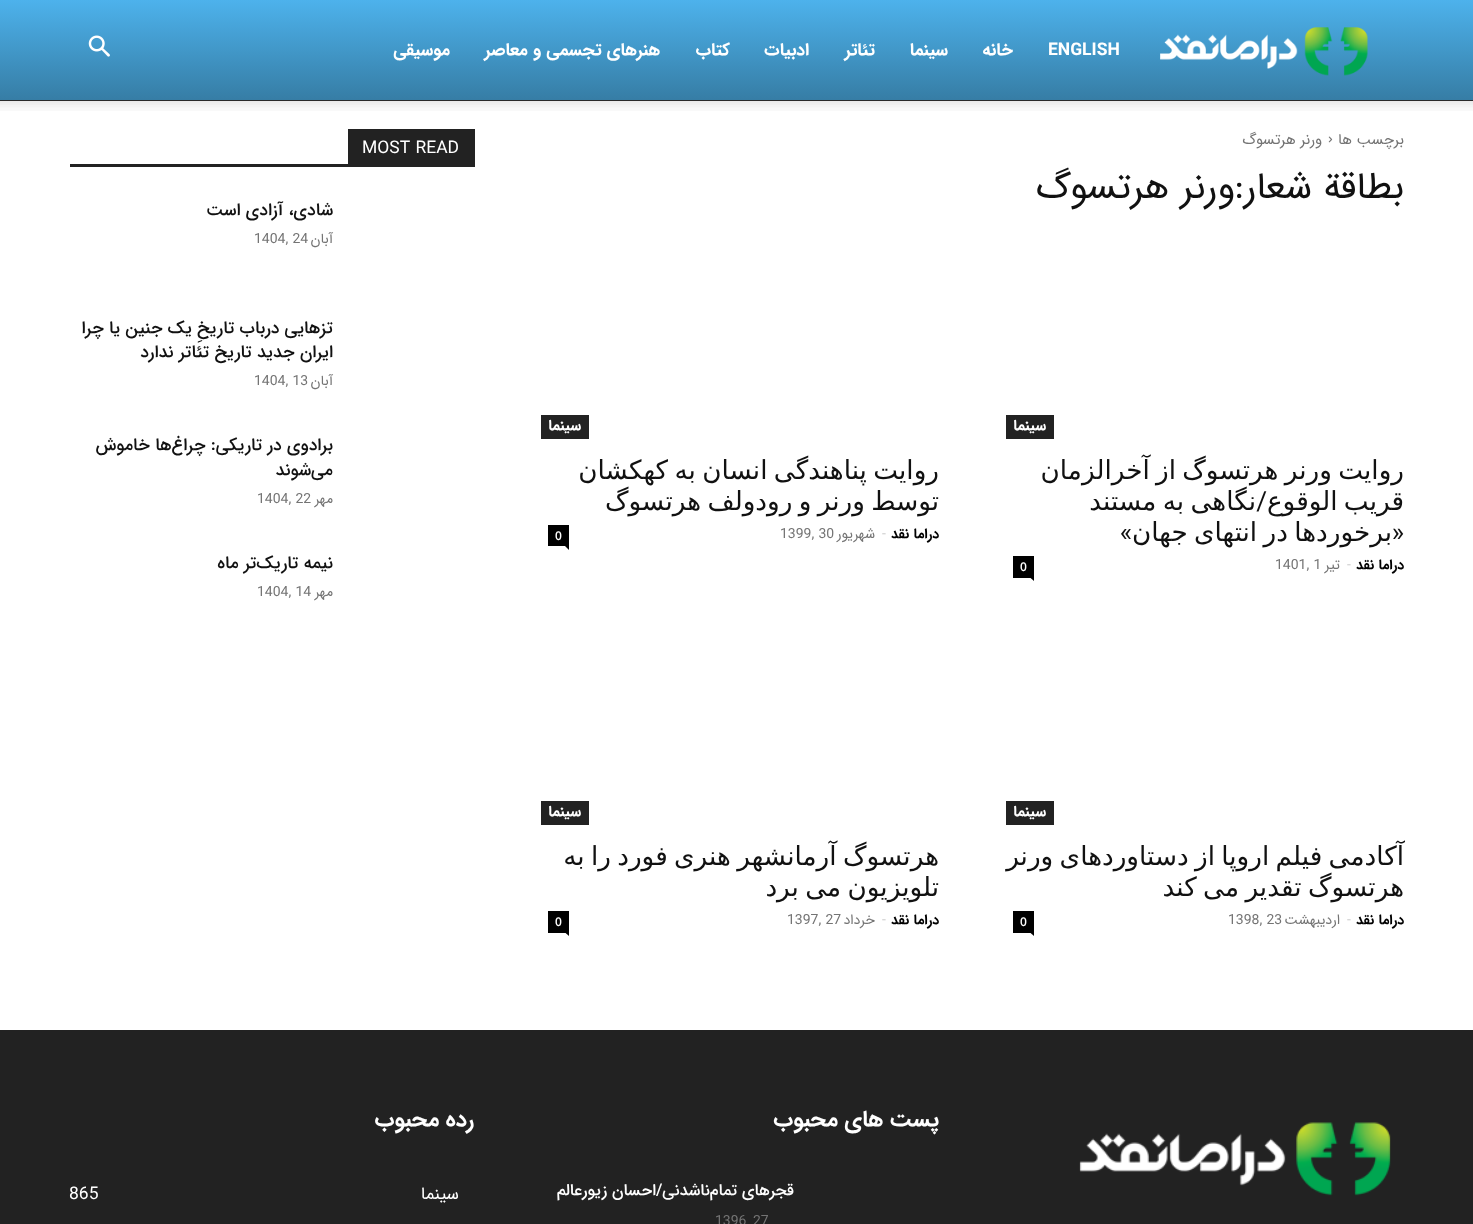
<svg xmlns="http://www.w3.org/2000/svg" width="1473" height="1224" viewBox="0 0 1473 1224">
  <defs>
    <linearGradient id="g1" gradientUnits="userSpaceOnUse" x1="737" y1="0" x2="737" y2="100"><stop offset="0" stop-color="rgb(77,178,236)"/><stop offset="1" stop-color="rgb(54,125,165)"/></linearGradient>
  </defs>
  <rect width="100%" height="100%" fill="rgb(255,255,255)"/>
  <rect x="0" y="0" width="1473" height="100" fill="url(#g1)"/>
  <image x="1160" y="27" width="208" height="49" href="pic1.png"/>
  <text x="1048" y="55" font-family="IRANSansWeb" font-size="17.5" font-weight="bold" fill="rgb(255,255,255)">ENGLISH</text>
  <g font-family="IRANSansWeb" font-size="17.5" font-weight="bold" direction="rtl" fill="rgb(255,255,255)">
    <text x="1013" y="55">خانه</text>
    <text x="948" y="55">سینما</text>
    <text x="875" y="55">تئاتر</text>
    <text x="809" y="55">ادبیات</text>
    <text x="730" y="55">کتاب</text>
    <text x="660" y="55">هنرهای تجسمی و معاصر</text>
    <text x="450" y="55">موسیقی</text>
  </g>
  <image x="88" y="35" width="22" height="22" href="pic2.png"/>
  <image x="0" y="101" width="1473" height="10" href="pic3.png"/>
  <rect x="0" y="100" width="1473" height="1" fill="rgb(43,43,43)"/>
  <text x="1404" y="144" font-family="IRANSansWeb" font-size="15" direction="rtl" fill="rgb(116,116,116)">برچسب ها</text>
  <image x="1328" y="136" width="5" height="7" href="pic4.png"/>
  <text x="1322" y="144" font-family="IRANSansWeb" font-size="15" direction="rtl" fill="rgb(116,116,116)">ورنر هرتسوگ</text>
  <g font-family="IRANSansWeb" font-size="37.5" direction="rtl" fill="rgb(17,17,17)">
    <text x="1404" y="198">بطاقة شعار:</text>
    <text x="1235" y="198">ورنر هرتسوگ</text>
  </g>
  <rect x="1006" y="415" width="48" height="24" fill="rgb(34,34,34)"/>
  <text x="1046" y="430" font-family="IRANSansWeb" font-size="15" font-weight="bold" direction="rtl" fill="rgb(255,255,255)">سینما</text>
  <g font-family="DejaVu Sans" font-size="26.25" direction="rtl" fill="rgb(17,17,17)">
    <text>
      <tspan x="1404" y="479" word-spacing="-2">روایت ورنر هرتسوگ از آخرالزمان</tspan>
      <tspan x="1404" y="510" word-spacing="-2">قریب الوقوع</tspan>
    </text>
    <text x="1256" y="510" word-spacing="-2">نگاهی به مستند</text>
  </g>
  <text x="1267" y="510" font-family="Roboto" font-size="26.25" direction="rtl" fill="rgb(17,17,17)">/</text>
  <text x="1392" y="541" word-spacing="-2" font-family="DejaVu Sans" font-size="26.25" direction="rtl" fill="rgb(17,17,17)">برخوردها در انتهای جهان</text>
  <g font-family="Roboto" font-size="26.25" direction="rtl" fill="rgb(17,17,17)">
    <text x="1404" y="541">«</text>
    <text x="1132" y="541">»</text>
  </g>
  <text x="1404" y="569" font-family="IRANSansWeb" font-size="14" font-weight="bold" direction="rtl" fill="rgb(0,0,0)">دراما نقد</text>
  <text x="1347" y="569" font-family="IRANSansWeb" font-size="14" fill="rgb(204,204,204)">-</text>
  <text x="1340" y="569" font-family="IRANSansWeb" font-size="14" direction="rtl" fill="rgb(116,116,116)">تیر</text>
  <text x="1275" y="569" font-family="IRANSansWeb" font-size="14" fill="rgb(116,116,116)">1401, 1</text>
  <rect x="1013" y="556" width="21" height="22" fill="rgb(0,0,0)"/>
  <text x="1020" y="571" font-family="Open Sans" font-size="12" font-weight="600" fill="rgb(255,255,255)">0</text>
  <path d="M1030 577.5H1034V581Z" fill="rgb(0,0,0)"/>
  <rect x="541" y="415" width="48" height="24" fill="rgb(34,34,34)"/>
  <text x="581" y="430" font-family="IRANSansWeb" font-size="15" font-weight="bold" direction="rtl" fill="rgb(255,255,255)">سینما</text>
  <g font-family="DejaVu Sans" font-size="26.25" direction="rtl" fill="rgb(17,17,17)">
    <text>
      <tspan x="939" y="479" word-spacing="-2">روایت پناهندگی انسان به کهکشان</tspan>
      <tspan x="939" y="510" word-spacing="-2">توسط ورنر و رودولف هرتسوگ</tspan>
    </text>
  </g>
  <text x="939" y="538" font-family="IRANSansWeb" font-size="14" font-weight="bold" direction="rtl" fill="rgb(0,0,0)">دراما نقد</text>
  <text x="882" y="538" font-family="IRANSansWeb" font-size="14" fill="rgb(204,204,204)">-</text>
  <text x="875" y="538" font-family="IRANSansWeb" font-size="14" direction="rtl" fill="rgb(116,116,116)">شهریور</text>
  <text x="780" y="538" font-family="IRANSansWeb" font-size="14" fill="rgb(116,116,116)">1399, 30</text>
  <rect x="548" y="525" width="21" height="21" fill="rgb(0,0,0)"/>
  <text x="555" y="540" font-family="Open Sans" font-size="12" font-weight="600" fill="rgb(255,255,255)">0</text>
  <path d="M565 546H569V550Z" fill="rgb(0,0,0)"/>
  <rect x="1006" y="801" width="48" height="24" fill="rgb(34,34,34)"/>
  <text x="1046" y="816" font-family="IRANSansWeb" font-size="15" font-weight="bold" direction="rtl" fill="rgb(255,255,255)">سینما</text>
  <g font-family="DejaVu Sans" font-size="26.25" direction="rtl" fill="rgb(17,17,17)">
    <text>
      <tspan x="1404" y="865" word-spacing="-2">آکادمی فیلم اروپا از دستاوردهای ورنر</tspan>
      <tspan x="1404" y="896" word-spacing="-2">هرتسوگ تقدیر می کند</tspan>
    </text>
  </g>
  <text x="1404" y="924" font-family="IRANSansWeb" font-size="14" font-weight="bold" direction="rtl" fill="rgb(0,0,0)">دراما نقد</text>
  <text x="1347" y="924" font-family="IRANSansWeb" font-size="14" fill="rgb(204,204,204)">-</text>
  <text x="1340" y="924" font-family="IRANSansWeb" font-size="14" direction="rtl" fill="rgb(116,116,116)">اردیبهشت</text>
  <text x="1228" y="924" font-family="IRANSansWeb" font-size="14" fill="rgb(116,116,116)">1398, 23</text>
  <rect x="1013" y="911" width="21" height="22" fill="rgb(0,0,0)"/>
  <text x="1020" y="926" font-family="Open Sans" font-size="12" font-weight="600" fill="rgb(255,255,255)">0</text>
  <path d="M1030 932.5H1034V936Z" fill="rgb(0,0,0)"/>
  <rect x="541" y="801" width="48" height="24" fill="rgb(34,34,34)"/>
  <text x="581" y="816" font-family="IRANSansWeb" font-size="15" font-weight="bold" direction="rtl" fill="rgb(255,255,255)">سینما</text>
  <g font-family="DejaVu Sans" font-size="26.25" direction="rtl" fill="rgb(17,17,17)">
    <text>
      <tspan x="939" y="865" word-spacing="-2">هرتسوگ آرمانشهر هنری فورد را به</tspan>
      <tspan x="939" y="896" word-spacing="-2">تلویزیون می برد</tspan>
    </text>
  </g>
  <text x="939" y="924" font-family="IRANSansWeb" font-size="14" font-weight="bold" direction="rtl" fill="rgb(0,0,0)">دراما نقد</text>
  <text x="882" y="924" font-family="IRANSansWeb" font-size="14" fill="rgb(204,204,204)">-</text>
  <text x="875" y="924" font-family="IRANSansWeb" font-size="14" direction="rtl" fill="rgb(116,116,116)">خرداد</text>
  <text x="787" y="924" font-family="IRANSansWeb" font-size="14" fill="rgb(116,116,116)">1397, 27</text>
  <rect x="548" y="911" width="21" height="22" fill="rgb(0,0,0)"/>
  <text x="555" y="926" font-family="Open Sans" font-size="12" font-weight="600" fill="rgb(255,255,255)">0</text>
  <path d="M565 932.5H569V936Z" fill="rgb(0,0,0)"/>
  <rect x="70" y="164" width="405" height="3" fill="rgb(34,34,34)"/>
  <rect x="348" y="129" width="127" height="35" fill="rgb(34,34,34)"/>
  <text x="362" y="153" font-family="IRANSansWeb" font-size="17.5" fill="rgb(255,255,255)">MOST READ</text>
  <text x="333" y="215" font-family="IRANSansWeb" font-size="17.5" font-weight="500" direction="rtl" fill="rgb(17,17,17)">شادی، آزادی است</text>
  <text x="333" y="243" font-family="IRANSansWeb" font-size="14" direction="rtl" fill="rgb(116,116,116)">آبان</text>
  <text x="254" y="243" font-family="IRANSansWeb" font-size="14" fill="rgb(116,116,116)">1404, 24</text>
  <g font-family="IRANSansWeb" font-size="17.5" font-weight="500" direction="rtl" fill="rgb(17,17,17)">
    <text>
      <tspan x="333" y="333">تزهایی درباب تاریخِ یک جنین یا چرا</tspan>
      <tspan x="333" y="357">ایران جدید تاریخ تئاتر ندارد</tspan>
    </text>
  </g>
  <text x="333" y="385" font-family="IRANSansWeb" font-size="14" direction="rtl" fill="rgb(116,116,116)">آبان</text>
  <text x="254" y="385" font-family="IRANSansWeb" font-size="14" fill="rgb(116,116,116)">1404, 13</text>
  <g font-family="IRANSansWeb" font-size="17.5" font-weight="500" direction="rtl" fill="rgb(17,17,17)">
    <text>
      <tspan x="333" y="450">برادوی در تاریکی: چراغ‌ها خاموش</tspan>
      <tspan x="333" y="475">می‌شوند</tspan>
    </text>
  </g>
  <text x="333" y="503" font-family="IRANSansWeb" font-size="14" direction="rtl" fill="rgb(116,116,116)">مهر</text>
  <text x="257" y="503" font-family="IRANSansWeb" font-size="14" fill="rgb(116,116,116)">1404, 22</text>
  <text x="333" y="568" font-family="IRANSansWeb" font-size="17.5" font-weight="500" direction="rtl" fill="rgb(17,17,17)">نیمه تاریک‌تر ماه</text>
  <text x="333" y="596" font-family="IRANSansWeb" font-size="14" direction="rtl" fill="rgb(116,116,116)">مهر</text>
  <text x="257" y="596" font-family="IRANSansWeb" font-size="14" fill="rgb(116,116,116)">1404, 14</text>
  <rect x="0" y="1030" width="1473" height="194" fill="rgb(34,34,34)"/>
  <image x="1079" y="1122" width="312" height="74" href="pic5.png"/>
  <text x="939" y="1126" font-family="IRANSansWeb" font-size="22.5" font-weight="bold" direction="rtl" fill="rgb(255,255,255)">پست های محبوب</text>
  <text x="794" y="1195" font-family="IRANSansWeb" font-size="16.25" font-weight="500" direction="rtl" fill="rgb(255,255,255)">قجرهای تمام‌ناشدنی/احسان زیورعالم</text>
  <g font-family="IRANSansWeb" font-size="14" fill="rgb(116,116,116)">
    <text x="753" y="1225">27</text>
    <text x="715" y="1225">1396</text>
  </g>
  <text x="474" y="1126" font-family="IRANSansWeb" font-size="22.5" font-weight="bold" direction="rtl" fill="rgb(255,255,255)">رده محبوب</text>
  <text x="459" y="1199" font-family="IRANSansWeb" font-size="17.5" direction="rtl" fill="rgb(255,255,255)">سینما</text>
  <text x="69" y="1199" font-family="IRANSansWeb" font-size="17.5" fill="rgb(255,255,255)">865</text>
</svg>
